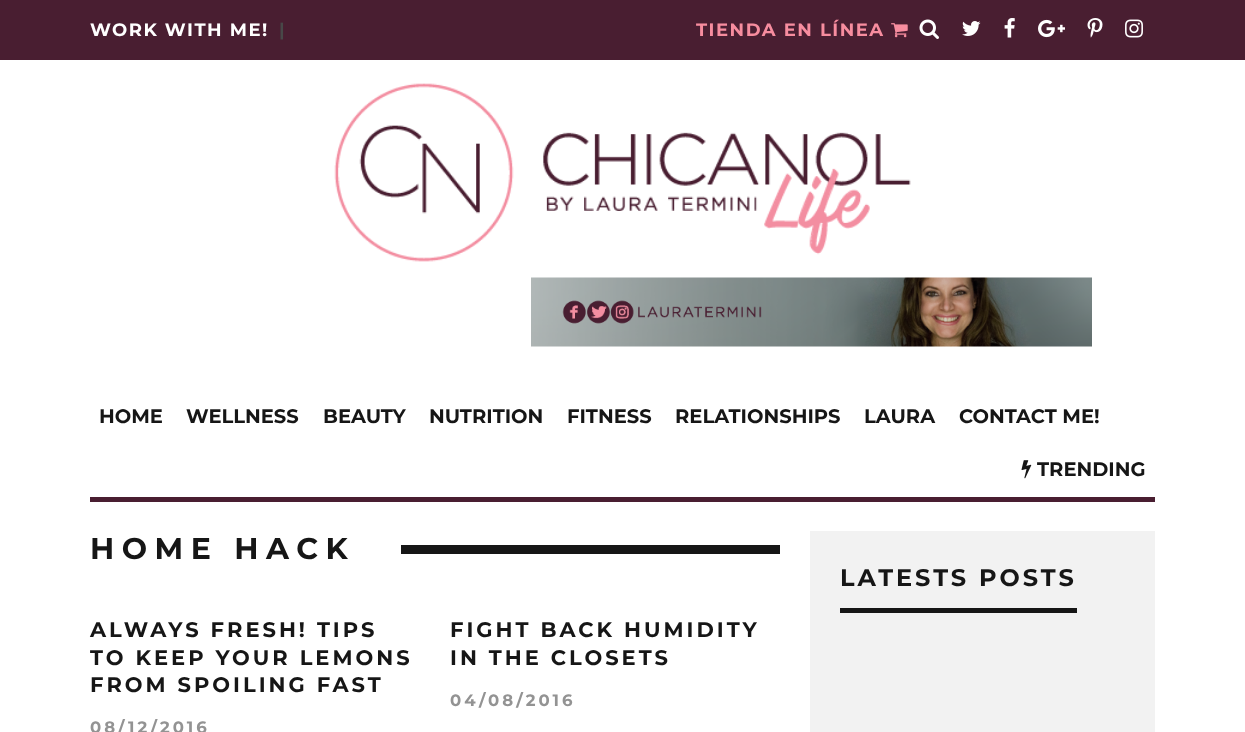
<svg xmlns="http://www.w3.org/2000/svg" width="1245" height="732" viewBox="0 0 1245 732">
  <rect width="100%" height="100%" fill="rgb(255,255,255)"/>
  <rect x="0" y="0" width="1245" height="60" fill="rgb(73,30,49)"/>
  <text x="90" y="36" font-family="Montserrat" font-size="18" font-weight="bold" letter-spacing="1.5" fill="rgb(255,255,255)">WORK WITH ME!</text>
  <text x="279" y="36" font-family="Montserrat" font-size="18" font-weight="bold" letter-spacing="1.5" fill="rgb(72,72,72)">|</text>
  <text x="696" y="36" font-family="Montserrat" font-size="18" font-weight="bold" letter-spacing="1.5" fill="rgb(247,141,159)">TIENDA EN LÍNEA</text>
  <image x="891" y="23" width="17" height="15" href="pic1.png"/>
  <image x="919" y="19" width="20" height="20" href="pic2.png"/>
  <image x="962" y="21" width="19" height="15" href="pic3.png"/>
  <image x="1004" y="18" width="11" height="20" href="pic4.png"/>
  <image x="1038" y="19" width="27" height="19" href="pic5.png"/>
  <image x="1087" y="18" width="16" height="20" href="pic6.png"/>
  <image x="1125" y="19" width="18" height="19" href="pic7.png"/>
  <image x="334" y="83" width="577" height="179" href="pic8.png"/>
  <image x="531" y="277" width="561" height="70" href="pic9.png"/>
  <rect x="90" y="497" width="1065" height="5" fill="rgb(73,30,49)"/>
  <g font-family="Montserrat" font-size="19.5" font-weight="bold" fill="rgb(22,22,22)">
    <text x="99" y="423">HOME</text>
    <text x="186" y="423">WELLNESS</text>
    <text x="323" y="423">BEAUTY</text>
    <text x="429" y="423">NUTRITION</text>
    <text x="567" y="423">FITNESS</text>
    <text x="675" y="423">RELATIONSHIPS</text>
    <text x="864" y="423">LAURA</text>
    <text x="959" y="423">CONTACT ME!</text>
  </g>
  <image x="1021" y="460" width="11" height="19" href="pic10.png"/>
  <text x="1037" y="476" font-family="Montserrat" font-size="19.5" font-weight="bold" fill="rgb(22,22,22)">TRENDING</text>
  <text x="90" y="559" font-family="Montserrat" font-size="30" font-weight="bold" letter-spacing="7.5" fill="rgb(22,22,22)">HOME HACK</text>
  <rect x="401" y="545" width="379" height="9" fill="rgb(22,22,22)"/>
  <g font-family="Montserrat" font-size="21" font-weight="bold" letter-spacing="3" fill="rgb(22,22,22)">
    <text>
      <tspan x="90" y="637">ALWAYS FRESH! TIPS</tspan>
      <tspan x="90" y="665">TO KEEP YOUR LEMONS</tspan>
      <tspan x="90" y="692">FROM SPOILING FAST</tspan>
    </text>
  </g>
  <text x="90" y="733" font-family="Montserrat" font-size="16.5" font-weight="bold" letter-spacing="3" fill="rgb(147,147,147)">08/12/2016</text>
  <g font-family="Montserrat" font-size="21" font-weight="bold" letter-spacing="3" fill="rgb(22,22,22)">
    <text>
      <tspan x="450" y="637">FIGHT BACK HUMIDITY</tspan>
      <tspan x="450" y="665">IN THE CLOSETS</tspan>
    </text>
  </g>
  <text x="450" y="706" font-family="Montserrat" font-size="16.5" font-weight="bold" letter-spacing="3" fill="rgb(147,147,147)">04/08/2016</text>
  <rect x="810" y="531" width="345" height="201" fill="rgb(242,242,242)"/>
  <rect x="840" y="608" width="237" height="5" fill="rgb(22,22,22)"/>
  <text x="840" y="586" font-family="Montserrat" font-size="24" font-weight="bold" letter-spacing="3" fill="rgb(22,22,22)">LATESTS POSTS</text>
</svg>
